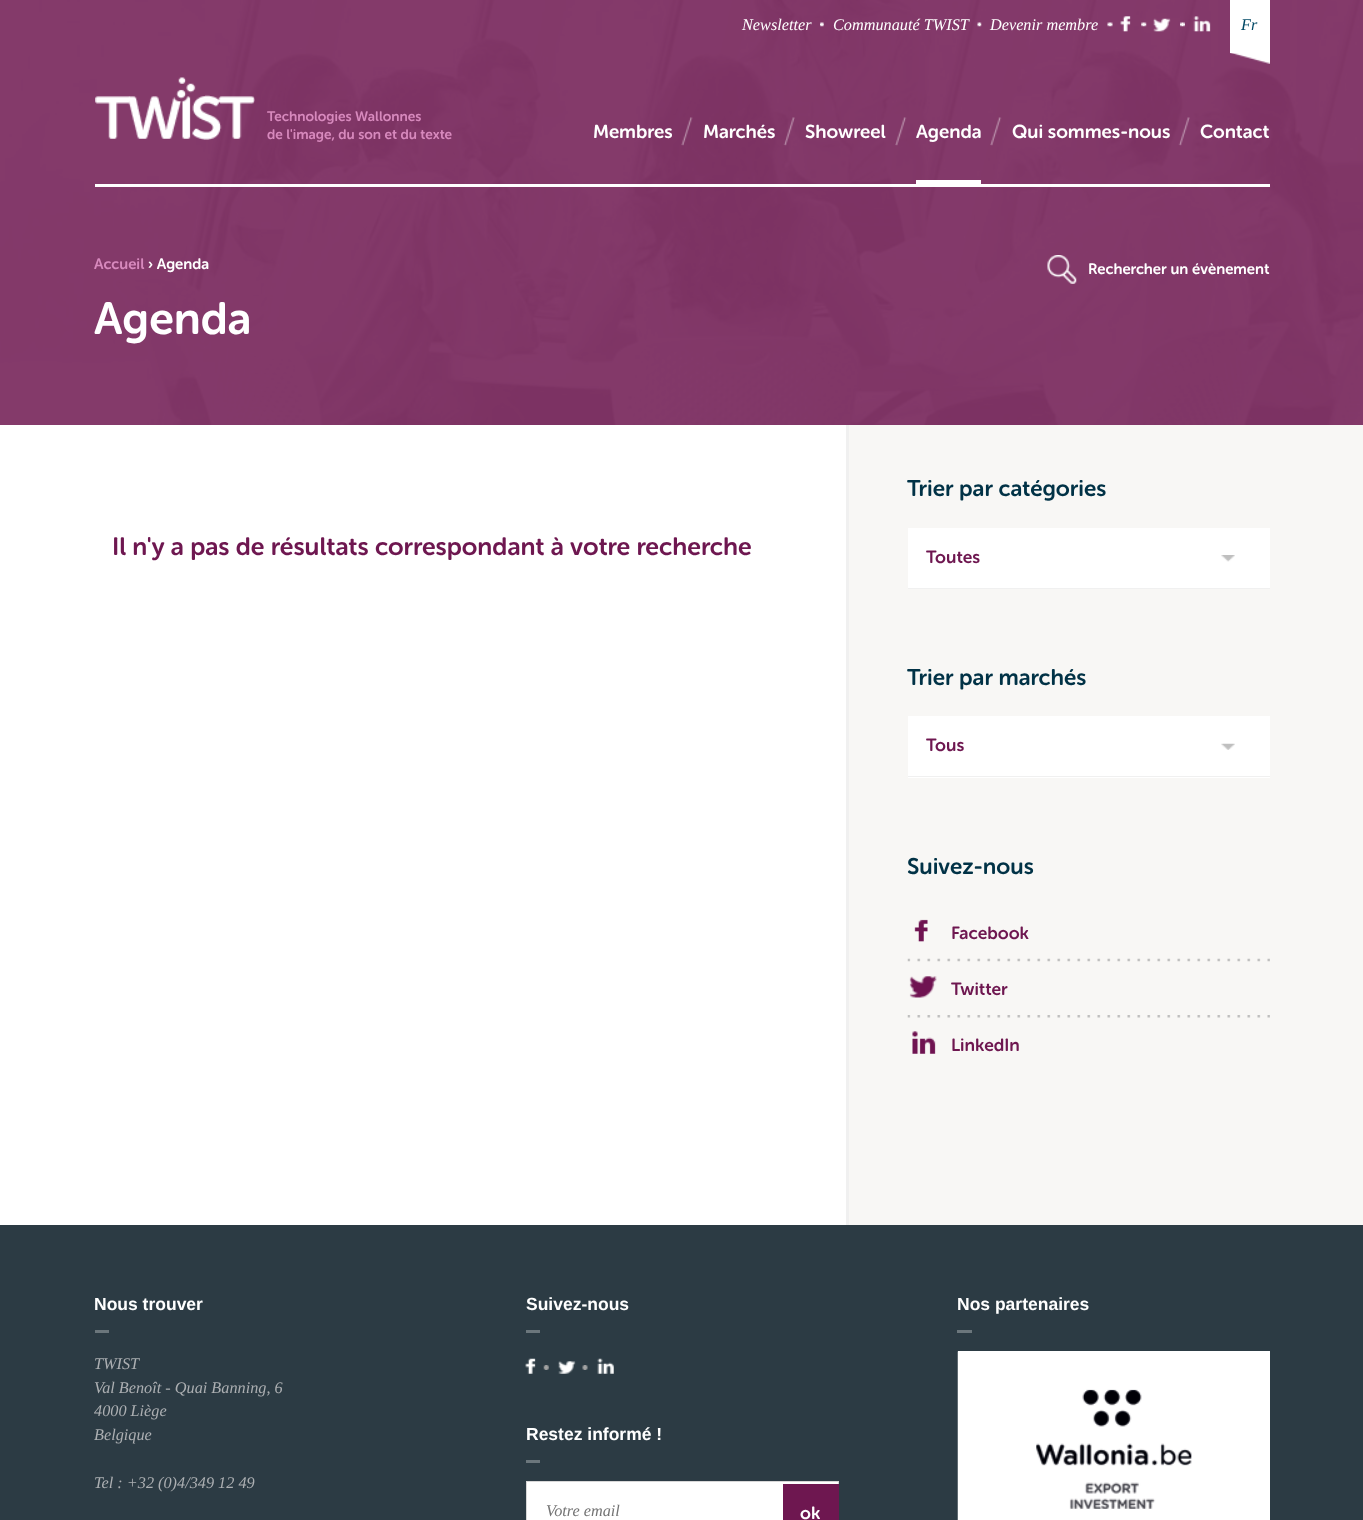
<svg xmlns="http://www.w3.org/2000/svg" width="1363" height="1520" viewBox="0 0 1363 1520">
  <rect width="100%" height="100%" fill="rgb(255,255,255)"/>
  <image x="0" y="0" width="1363" height="425" href="pic1.png"/>
  <text x="742" y="30" font-family="Liberation Serif" font-size="16.25" font-style="italic" fill="rgb(255,255,255)">Newsletter</text>
  <image x="820" y="22" width="4" height="5" href="pic2.png"/>
  <text x="833" y="30" font-family="Liberation Serif" font-size="16.25" font-style="italic" fill="rgb(255,255,255)">Communauté TWIST</text>
  <image x="977" y="22" width="5" height="5" href="pic3.png"/>
  <text x="990" y="30" font-family="Liberation Serif" font-size="16.25" font-style="italic" fill="rgb(255,255,255)">Devenir membre</text>
  <image x="1107" y="22" width="6" height="5" href="pic4.png"/>
  <image x="1120" y="16" width="11" height="16" href="pic5.png"/>
  <image x="1141" y="22" width="6" height="5" href="pic6.png"/>
  <image x="1153" y="18" width="18" height="14" href="pic7.png"/>
  <image x="1180" y="22" width="5" height="5" href="pic8.png"/>
  <image x="1193" y="16" width="18" height="16" href="pic9.png"/>
  <rect x="1230" y="0" width="40" height="53" fill="rgb(255,255,255)"/>
  <text x="1241" y="30" font-family="Liberation Serif" font-size="16.25" font-style="italic" fill="rgb(1,72,101)">Fr</text>
  <image x="1230" y="53" width="40" height="11" href="pic10.png"/>
  <rect x="95" y="184" width="1175" height="3" fill="rgb(255,255,255)"/>
  <image x="95" y="77" width="160" height="63" href="pic11.png"/>
  <g font-family="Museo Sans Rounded" font-size="13.75" font-weight="600" fill="rgb(215,137,189)">
    <text>
      <tspan x="267" y="121">Technologies Wallonnes</tspan>
      <tspan x="267" y="139">de l'image, du son et du texte</tspan>
    </text>
  </g>
  <text x="593" y="138" font-family="Museo Sans Rounded" font-size="18.75" font-weight="600" fill="rgb(255,255,255)">Membres</text>
  <image x="681" y="117" width="12" height="29" href="pic12.png"/>
  <text x="703" y="138" font-family="Museo Sans Rounded" font-size="18.75" font-weight="600" fill="rgb(255,255,255)">Marchés</text>
  <image x="783" y="117" width="12" height="29" href="pic13.png"/>
  <text x="805" y="138" font-family="Museo Sans Rounded" font-size="18.75" font-weight="600" fill="rgb(255,255,255)">Showreel</text>
  <image x="895" y="117" width="12" height="29" href="pic14.png"/>
  <text x="916" y="138" font-family="Museo Sans Rounded" font-size="18.75" font-weight="600" fill="rgb(255,255,255)">Agenda</text>
  <rect x="916" y="180" width="65" height="4" fill="rgb(255,255,255)"/>
  <image x="990" y="117" width="12" height="29" href="pic15.png"/>
  <text x="1012" y="138" font-family="Museo Sans Rounded" font-size="18.75" font-weight="600" fill="rgb(255,255,255)">Qui sommes-nous</text>
  <image x="1178" y="117" width="12" height="29" href="pic16.png"/>
  <text x="1200" y="138" font-family="Museo Sans Rounded" font-size="18.75" font-weight="600" fill="rgb(255,255,255)">Contact</text>
  <text x="94" y="269" font-family="Museo Sans Rounded" font-size="15" font-weight="600" fill="rgb(215,137,189)">Accueil</text>
  <text x="148" y="269" font-family="Museo Sans Rounded" font-size="15" font-weight="600" fill="rgb(255,255,255)">› Agenda</text>
  <image x="1047" y="255" width="30" height="29" href="pic17.png"/>
  <text x="1088" y="274" font-family="Museo Sans Rounded" font-size="15" font-weight="600" fill="rgb(255,255,255)">Rechercher un évènement</text>
  <text x="94" y="334" font-family="Museo Sans Rounded" font-size="45" font-weight="600" fill="rgb(255,255,255)">Agenda</text>
  <rect x="849" y="425" width="514" height="800" fill="rgb(248,247,245)"/>
  <rect x="846" y="425" width="3" height="800" fill="rgb(240,240,240)"/>
  <text x="112" y="555" font-family="Museo Sans Rounded" font-size="25" font-weight="600" fill="rgb(110,23,80)">Il n'y a pas de résultats correspondant à votre recherche</text>
  <text x="907" y="496" font-family="Museo Sans Rounded" font-size="22.5" font-weight="600" fill="rgb(1,50,70)">Trier par catégories</text>
  <rect x="908" y="528" width="362" height="60" fill="rgb(255,255,255)"/>
  <image x="1221" y="555" width="14" height="7" href="pic18.png"/>
  <rect x="908" y="588" width="362" height="1" fill="rgb(240,240,240)"/>
  <text x="926" y="563" font-family="Museo Sans Rounded" font-size="17.5" font-weight="600" fill="rgb(110,23,80)">Toutes</text>
  <text x="907" y="685" font-family="Museo Sans Rounded" font-size="22.5" font-weight="600" fill="rgb(1,50,70)">Trier par marchés</text>
  <rect x="908" y="716" width="362" height="62" fill="rgb(255,255,255)"/>
  <image x="1221" y="743" width="14" height="7" href="pic19.png"/>
  <rect x="908" y="776" width="362" height="1" fill="rgb(240,240,240)"/>
  <text x="926" y="751" font-family="Museo Sans Rounded" font-size="17.5" font-weight="600" fill="rgb(110,23,80)">Tous</text>
  <text x="907" y="874" font-family="Museo Sans Rounded" font-size="22.5" font-weight="600" fill="rgb(1,50,70)">Suivez-nous</text>
  <image x="907" y="958" width="363" height="4" href="pic20.png"/>
  <image x="914" y="919" width="14" height="23" href="pic21.png"/>
  <text x="951" y="939" font-family="Museo Sans Rounded" font-size="17.5" font-weight="600" fill="rgb(110,23,80)">Facebook</text>
  <image x="907" y="1015" width="363" height="3" href="pic22.png"/>
  <image x="909" y="976" width="28" height="22" href="pic23.png"/>
  <text x="951" y="995" font-family="Museo Sans Rounded" font-size="17.5" font-weight="600" fill="rgb(110,23,80)">Twitter</text>
  <image x="912" y="1031" width="24" height="23" href="pic24.png"/>
  <text x="951" y="1051" font-family="Museo Sans Rounded" font-size="17.5" font-weight="600" fill="rgb(110,23,80)">LinkedIn</text>
  <rect x="0" y="1225" width="1363" height="295" fill="rgb(44,59,68)"/>
  <rect x="95" y="1330" width="14" height="3" fill="rgb(107,118,124)"/>
  <text x="94" y="1310" font-family="Liberation Sans" font-size="17.5" font-weight="bold" fill="rgb(255,255,255)">Nous trouver</text>
  <g font-family="Liberation Serif" font-size="16.25" font-style="italic" fill="rgb(172,175,178)">
    <text>
      <tspan x="94" y="1369">TWIST</tspan>
      <tspan x="94" y="1393">Val Benoît - Quai Banning, 6</tspan>
      <tspan x="94" y="1416">4000 Liège</tspan>
      <tspan x="94" y="1440">Belgique</tspan>
    </text>
    <text x="94" y="1488">Tel : +32 (0)4/349 12 49</text>
  </g>
  <rect x="526" y="1330" width="14" height="3" fill="rgb(107,118,124)"/>
  <text x="526" y="1310" font-family="Liberation Sans" font-size="17.5" font-weight="bold" fill="rgb(255,255,255)">Suivez-nous</text>
  <image x="543" y="1365" width="6" height="5" href="pic25.png"/>
  <image x="525" y="1358" width="11" height="16" href="pic26.png"/>
  <image x="582" y="1365" width="6" height="5" href="pic27.png"/>
  <image x="558" y="1361" width="18" height="13" href="pic28.png"/>
  <image x="597" y="1358" width="17" height="16" href="pic29.png"/>
  <rect x="526" y="1460" width="14" height="3" fill="rgb(107,118,124)"/>
  <text x="526" y="1440" font-family="Liberation Sans" font-size="17.5" font-weight="bold" fill="rgb(255,255,255)">Restez informé !</text>
  <rect x="526.5" y="1481.5" width="312" height="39" fill="rgb(255,255,255)" stroke="rgb(215,215,215)"/>
  <text x="546" y="1516" font-family="Liberation Serif" font-size="16.25" font-style="italic" fill="rgb(116,116,116)">Votre email</text>
  <rect x="783" y="1484" width="56" height="36" fill="rgb(110,23,80)"/>
  <text x="800" y="1519" font-family="Museo Sans Rounded" font-size="17.5" font-weight="600" fill="rgb(255,255,255)">ok</text>
  <rect x="957" y="1330" width="15" height="3" fill="rgb(107,118,124)"/>
  <text x="957" y="1310" font-family="Liberation Sans" font-size="17.5" font-weight="bold" fill="rgb(255,255,255)">Nos partenaires</text>
  <rect x="958" y="1351" width="312" height="169" fill="rgb(255,255,255)"/>
  <image x="957" y="1351" width="235" height="169" href="pic30.png"/>
</svg>
